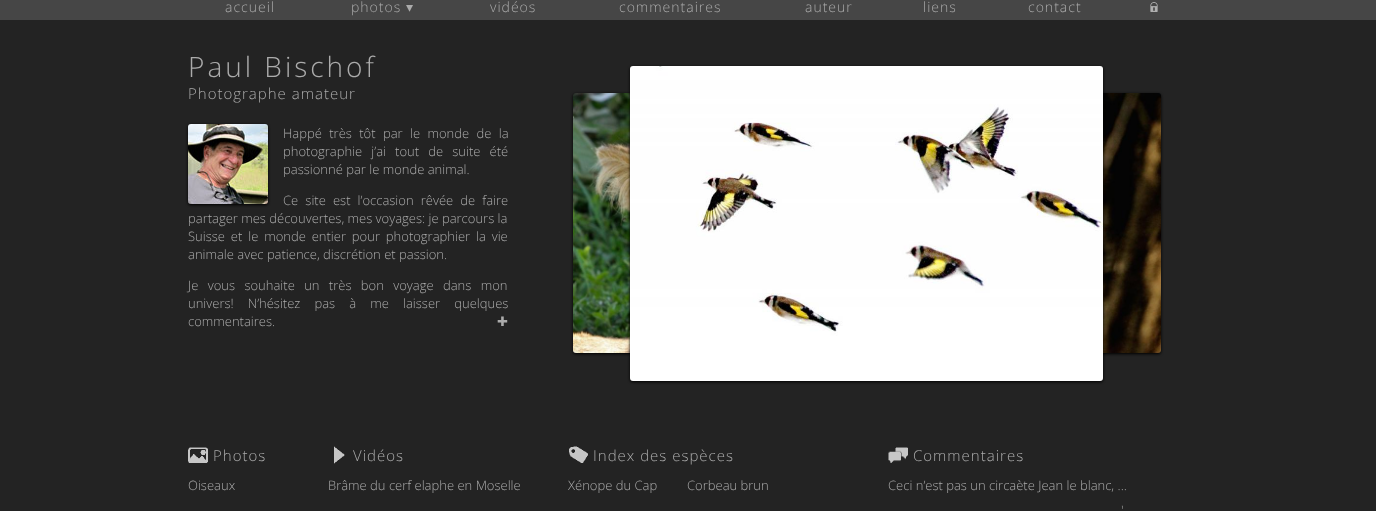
<svg xmlns="http://www.w3.org/2000/svg" width="1376" height="511" viewBox="0 0 1376 511">
  <rect width="100%" height="100%" fill="rgb(35,35,35)"/>
  <rect x="0" y="0" width="1376" height="20" fill="rgb(70,70,70)"/>
  <g font-family="Open Sans" font-size="14" font-weight="300" letter-spacing="1" fill="rgb(171,171,171)">
    <text x="225" y="12">accueil</text>
    <text x="351" y="12">photos</text>
  </g>
  <text x="406" y="12" font-family="DejaVu Sans" font-size="14" letter-spacing="1" fill="rgb(171,171,171)">▾</text>
  <g font-family="Open Sans" font-size="14" font-weight="300" letter-spacing="1" fill="rgb(171,171,171)">
    <text x="490" y="12">vidéos</text>
    <text x="619" y="12">commentaires</text>
    <text x="805" y="12">auteur</text>
    <text x="923" y="12">liens</text>
    <text x="1028" y="12">contact</text>
  </g>
  <image x="1150" y="2" width="8" height="10" href="pic1.png"/>
  <text x="188" y="77" font-family="Open Sans" font-size="28" font-weight="300" letter-spacing="3" fill="rgb(171,171,171)">Paul Bischof</text>
  <text x="188" y="99" font-family="Open Sans" font-size="15" font-weight="300" letter-spacing="1" fill="rgb(171,171,171)">Photographe amateur</text>
  <rect x="188" y="125" width="80" height="80" rx="3" fill="rgb(0,0,0)" filter="blur(1.5px)"/>
  <image x="188" y="124" width="80" height="80" href="pic2.png"/>
  <g font-family="Open Sans" font-size="13" font-weight="300" fill="rgb(171,171,171)">
    <text>
      <tspan x="283" y="138" word-spacing="4">Happé très tôt par le monde de la</tspan>
      <tspan x="283" y="156" word-spacing="5.75">photographie j’ai tout de suite été</tspan>
      <tspan x="283" y="174">passionné par le monde animal.</tspan>
    </text>
    <text x="283" y="205" word-spacing="3.75">Ce site est l’occasion rêvée de faire</text>
    <text>
      <tspan x="188" y="223">partager mes découvertes, mes voyages: je parcours la</tspan>
      <tspan x="188" y="241" word-spacing="2.5">Suisse et le monde entier pour photographier la vie</tspan>
      <tspan x="188" y="259">animale avec patience, discrétion et passion.</tspan>
    </text>
    <text>
      <tspan x="188" y="290" word-spacing="6">Je vous souhaite un très bon voyage dans mon</tspan>
      <tspan x="188" y="308" word-spacing="10.75">univers! N’hésitez pas à me laisser quelques</tspan>
      <tspan x="188" y="326">commentaires.</tspan>
    </text>
  </g>
  <text x="497" y="326" font-family="DejaVu Sans" font-size="13" fill="rgb(171,171,171)">✚</text>
  <rect x="573" y="94" width="391" height="260" rx="3" fill="rgb(0,0,0)" filter="blur(1.5px)"/>
  <image x="573" y="93" width="57" height="260" href="pic4.png"/>
  <rect x="770" y="94" width="391" height="260" rx="3" fill="rgb(0,0,0)" filter="blur(1.5px)"/>
  <image x="1103" y="93" width="58" height="260" href="pic5.png"/>
  <rect x="630" y="67" width="473" height="315" rx="3" fill="rgb(0,0,0)" filter="blur(1.5px)"/>
  <image x="630" y="66" width="473" height="315" href="pic3.png"/>
  <image x="188" y="447" width="20" height="16" href="pic6.png"/>
  <text x="213" y="461" font-family="Open Sans" font-size="15" font-weight="300" letter-spacing="1" fill="rgb(171,171,171)">Photos</text>
  <text x="188" y="490" font-family="Open Sans" font-size="13" font-weight="300" fill="rgb(171,171,171)">Oiseaux</text>
  <image x="334" y="446" width="11" height="18" href="pic7.png"/>
  <text x="353" y="461" font-family="Open Sans" font-size="15" font-weight="300" letter-spacing="1" fill="rgb(171,171,171)">Vidéos</text>
  <text x="328" y="490" font-family="Open Sans" font-size="13" font-weight="300" fill="rgb(171,171,171)">Brâme du cerf elaphe en Moselle</text>
  <image x="569" y="446" width="19" height="17" href="pic8.png"/>
  <text x="593" y="461" font-family="Open Sans" font-size="15" font-weight="300" letter-spacing="1" fill="rgb(171,171,171)">Index des espèces</text>
  <g font-family="Open Sans" font-size="13" font-weight="300" fill="rgb(171,171,171)">
    <text x="568" y="490">Xénope du Cap</text>
    <text x="687" y="490">Corbeau brun</text>
  </g>
  <image x="888" y="447" width="20" height="16" href="pic9.png"/>
  <text x="913" y="461" font-family="Open Sans" font-size="15" font-weight="300" letter-spacing="1" fill="rgb(171,171,171)">Commentaires</text>
  <g font-family="Open Sans" font-size="13" font-weight="300" fill="rgb(171,171,171)">
    <text x="888" y="490">Ceci n’est pas un circaète Jean le blanc, ...</text>
    <text x="1121" y="515">'</text>
  </g>
</svg>
